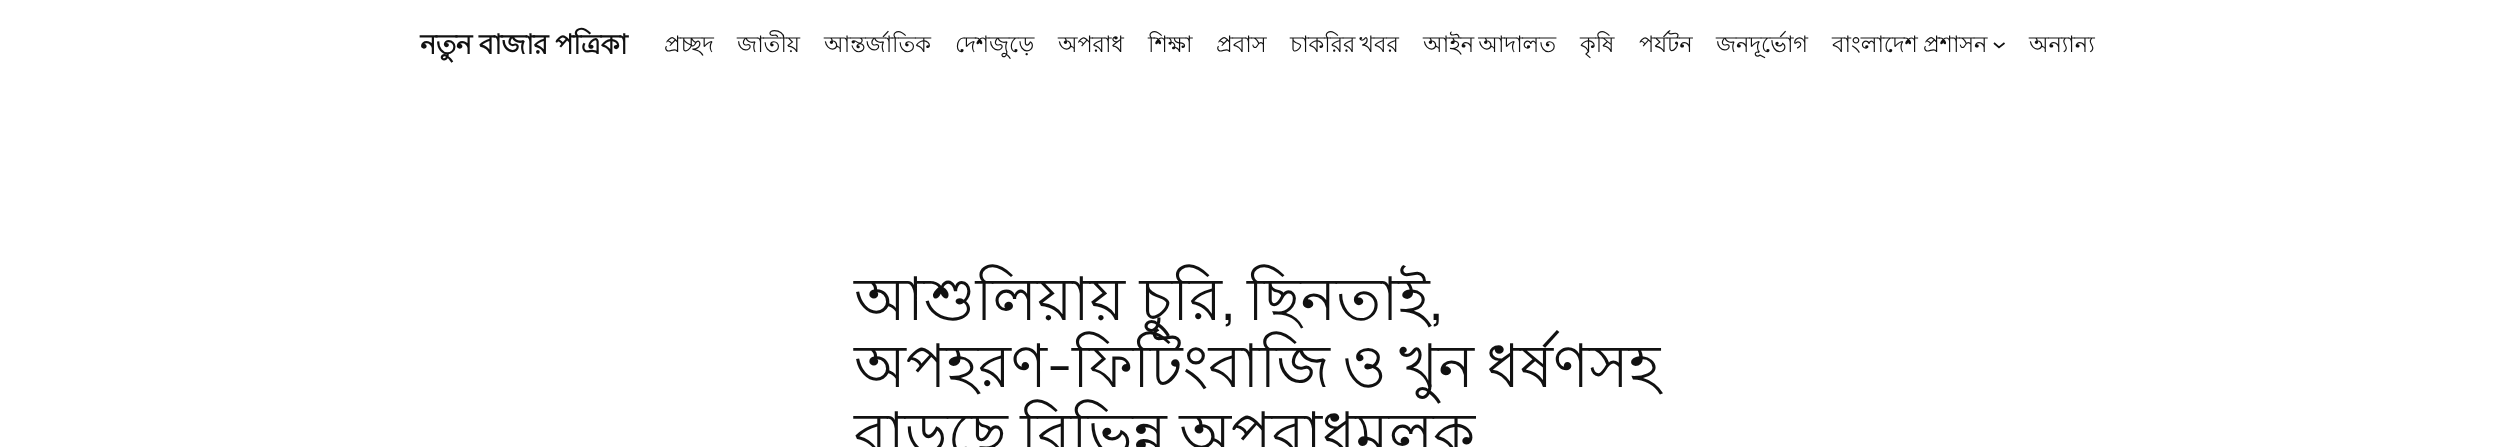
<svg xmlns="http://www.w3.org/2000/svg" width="2514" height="447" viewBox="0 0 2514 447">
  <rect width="100%" height="100%" fill="rgb(255,255,255)"/>
  <text x="420" y="54" font-family="Lohit Bengali" font-size="27.5" font-weight="bold" letter-spacing="-0.6" fill="rgb(17,17,17)">নতুন বাজার পত্রিকা</text>
  <g font-family="Lohit Bengali" font-size="22.5" letter-spacing="-0.1" fill="rgb(17,17,17)">
    <text x="664" y="52">প্রচ্ছদ</text>
    <text x="737" y="52">জাতীয়</text>
    <text x="824" y="52">আন্তর্জাতিক</text>
    <text x="955" y="52">দেশজুড়ে</text>
    <text x="1058" y="52">অপরাধ</text>
    <text x="1148" y="52">শিক্ষা</text>
    <text x="1216" y="52">প্রবাস</text>
    <text x="1290" y="52" word-spacing="-2">চাকরির খবর</text>
    <text x="1423" y="52" word-spacing="-2">আইন আদালত</text>
    <text x="1580" y="52">কৃষি</text>
    <text x="1639" y="52">পর্যটন</text>
    <text x="1716" y="52">জনদূর্ভোগ</text>
    <text x="1832" y="52" word-spacing="-1">বাংলাদেশ প্রশাসন</text>
  </g>
  <path d="M1994 43L1999 47.5L2004.5 43" fill="none" stroke="rgb(17,17,17)" stroke-width="1.7"/>
  <text x="2029" y="52" font-family="Lohit Bengali" font-size="22.5" letter-spacing="-0.1" fill="rgb(17,17,17)">অন্যান্য</text>
  <text x="854" y="320" word-spacing="-2" font-family="Lohit Bengali" font-size="60" letter-spacing="-0.1" fill="rgb(17,17,17)">আশুলিয়ায় চুরি</text>
  <text x="1222" y="320" font-family="Manrope" font-size="60" letter-spacing="-0.1" fill="rgb(17,17,17)">,</text>
  <text x="1247" y="320" font-family="Lohit Bengali" font-size="60" letter-spacing="-0.1" fill="rgb(17,17,17)">ছিনতাই</text>
  <text x="1430" y="320" font-family="Manrope" font-size="60" letter-spacing="-0.1" fill="rgb(17,17,17)">,</text>
  <text x="854" y="387" font-family="Lohit Bengali" font-size="60" letter-spacing="-0.1" fill="rgb(17,17,17)">অপহরণ</text>
  <text x="1047" y="387" font-family="Manrope" font-size="60" letter-spacing="-0.1" fill="rgb(17,17,17)">-</text>
  <g font-family="Lohit Bengali" font-size="60" letter-spacing="-0.1" fill="rgb(17,17,17)">
    <text x="1072" y="387" word-spacing="-4">ফিটিংবাজি ও খুন ধর্ষণসহ</text>
    <text x="854" y="455" word-spacing="-4">বাড়ছে বিভিন্ন অপরাধমূলক</text>
  </g>
</svg>
